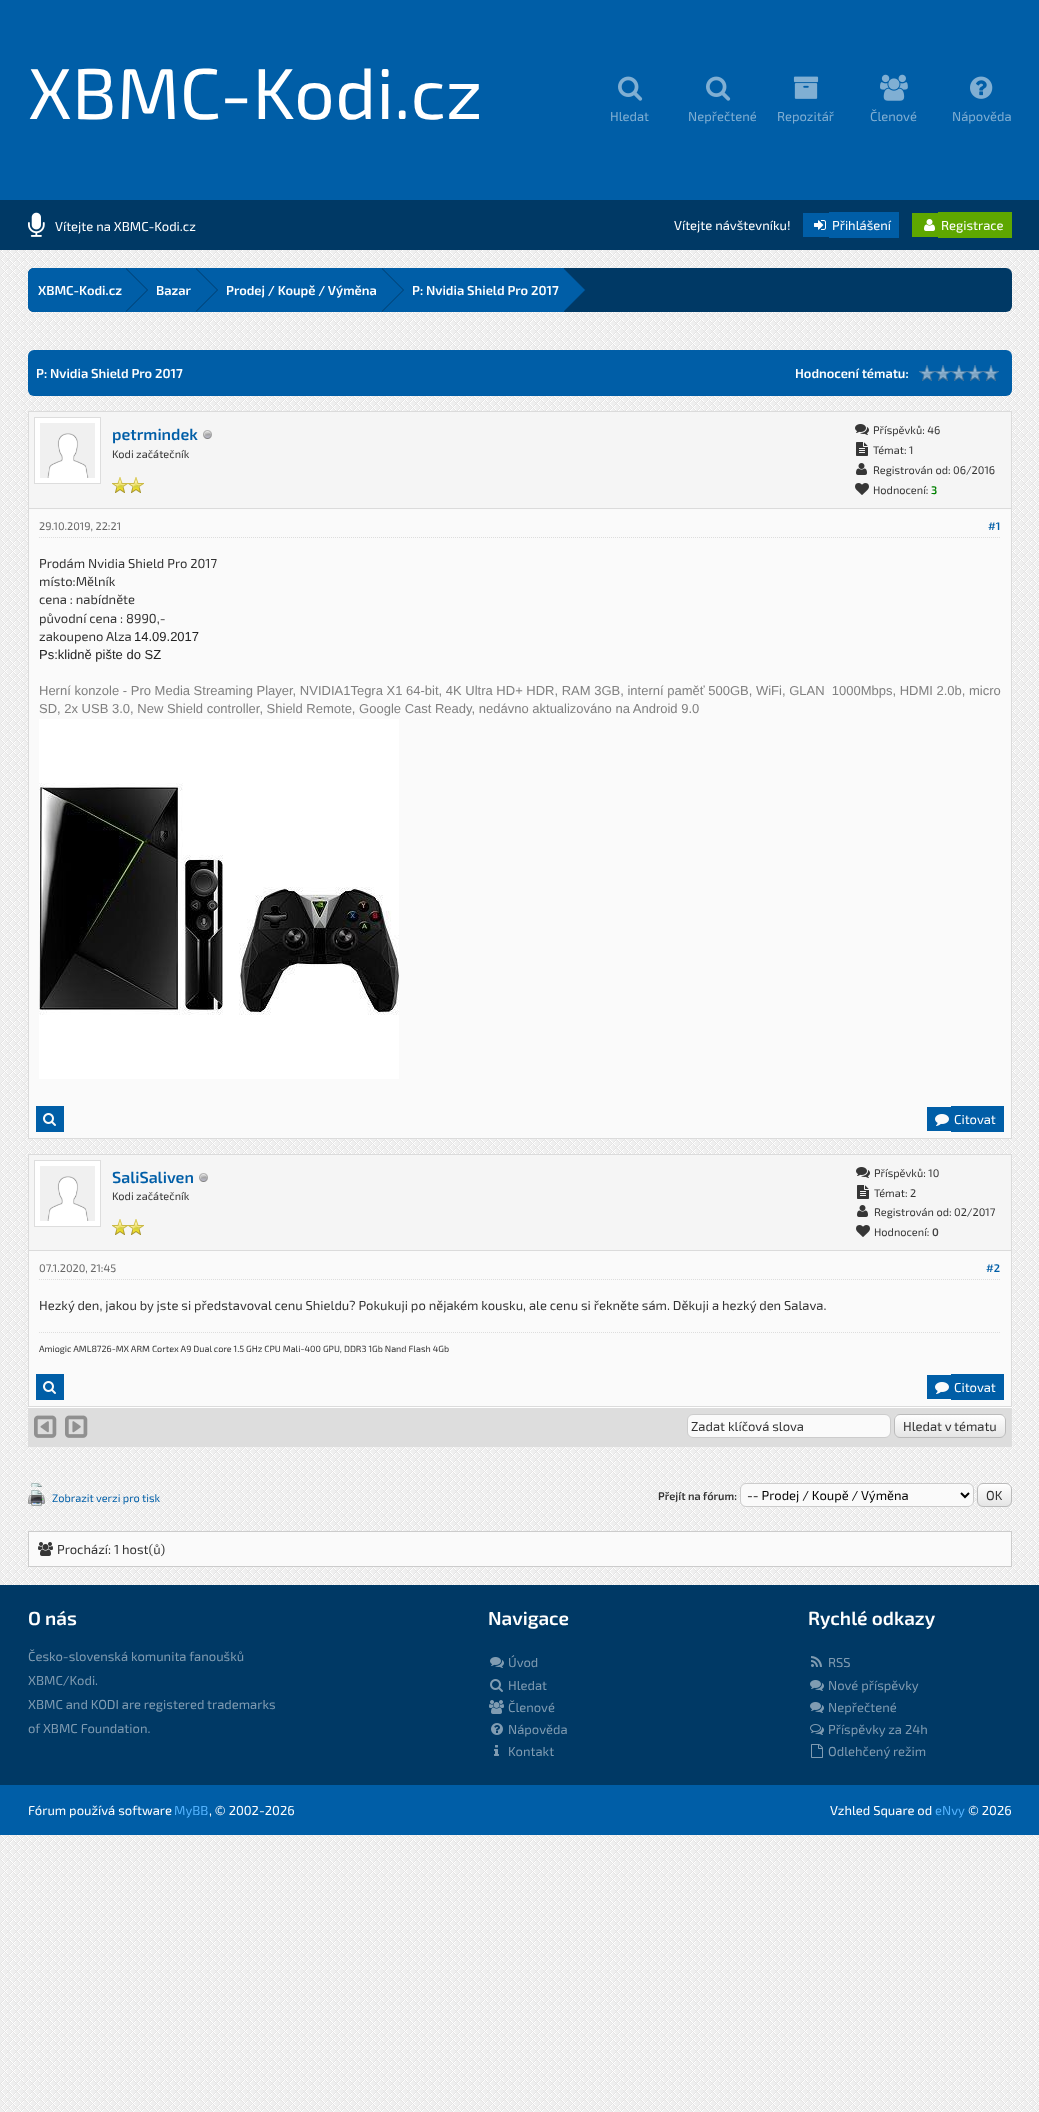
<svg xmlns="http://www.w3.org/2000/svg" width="1039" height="2112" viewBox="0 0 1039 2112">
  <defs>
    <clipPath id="clip1"><rect x="894" y="1414" width="112" height="24" rx="6"/></clipPath>
    <linearGradient id="g1" gradientUnits="userSpaceOnUse" x1="950" y1="1415" x2="950" y2="1437"><stop offset="0" stop-color="rgb(255,255,255)"/><stop offset="1" stop-color="rgb(229,229,229)"/></linearGradient>
    <clipPath id="clip2"><rect x="977" y="1483" width="35" height="24" rx="6"/></clipPath>
    <linearGradient id="g2" gradientUnits="userSpaceOnUse" x1="995" y1="1484" x2="995" y2="1506"><stop offset="0" stop-color="rgb(255,255,255)"/><stop offset="1" stop-color="rgb(229,229,229)"/></linearGradient>
  </defs>
  <rect width="100%" height="100%" fill="rgb(239,239,239)"/>
  <image x="0" y="250" width="1039" height="1862" href="pic1.png"/>
  <rect x="0" y="0" width="1039" height="200" fill="rgb(0,94,167)"/>
  <text x="28" y="119" font-family="'Exo 2'" font-size="72" fill="rgb(255,255,255)">XBMC-Kodi.cz</text>
  <image x="618" y="76" width="25" height="25" href="pic2.png"/>
  <text x="610" y="121" font-family="'Exo 2'" font-size="13" fill="rgb(128,175,211)">Hledat</text>
  <image x="706" y="76" width="25" height="25" href="pic2.png"/>
  <text x="688" y="121" font-family="'Exo 2'" font-size="13" fill="rgb(128,175,211)">Nepřečtené</text>
  <image x="793" y="76" width="26" height="23" href="pic3.png"/>
  <text x="777" y="121" font-family="'Exo 2'" font-size="13" fill="rgb(128,175,211)">Repozitář</text>
  <image x="880" y="74" width="28" height="27" href="pic4.png"/>
  <text x="870" y="121" font-family="'Exo 2'" font-size="13" fill="rgb(128,175,211)">Členové</text>
  <image x="970" y="76" width="23" height="23" href="pic5.png"/>
  <text x="952" y="121" font-family="'Exo 2'" font-size="13" fill="rgb(128,175,211)">Nápověda</text>
  <rect x="0" y="200" width="1039" height="50" fill="rgb(0,57,101)"/>
  <image x="28" y="212" width="17" height="25" href="pic6.png"/>
  <g font-family="'Exo 2'" font-size="13" fill="rgb(255,255,255)">
    <text x="55" y="231">Vítejte na XBMC-Kodi.cz</text>
    <text x="674" y="230">Vítejte návštevníku!</text>
  </g>
  <rect x="803" y="213" width="26" height="24" fill="rgb(0,94,167)"/>
  <rect x="829" y="212" width="70" height="26" fill="rgb(0,94,167)"/>
  <image x="814" y="220" width="12" height="10" href="pic7.png"/>
  <text x="832" y="230" font-family="'Exo 2'" font-size="13" fill="rgb(255,255,255)">Přihlášení</text>
  <rect x="912" y="213" width="26" height="24" fill="rgb(94,167,0)"/>
  <rect x="938" y="212" width="74" height="26" fill="rgb(94,167,0)"/>
  <image x="924" y="219" width="11" height="12" href="pic8.png"/>
  <text x="941" y="230" font-family="'Exo 2'" font-size="13" fill="rgb(255,255,255)">Registrace</text>
  <rect x="28" y="268" width="984" height="44" rx="6" fill="rgb(0,57,101)"/>
  <path d="M34 268H126V312H34C30.5 312 28 309.5 28 306V274C28 270.5 30.5 268 34 268Z" fill="rgb(0,94,167)"/>
  <text x="38" y="295" font-family="'Exo 2'" font-size="13" font-weight="600" fill="rgb(255,255,255)">XBMC-Kodi.cz</text>
  <rect x="126" y="268" width="438" height="44" fill="rgb(0,94,167)"/>
  <path d="M126 312V268L148 290Z" fill="rgb(0,60,109)"/>
  <path d="M125 268L147 290L125 312H124V268Z" fill="rgb(0,94,167)"/>
  <text x="156" y="295" font-family="'Exo 2'" font-size="13" font-weight="600" fill="rgb(255,255,255)">Bazar</text>
  <path d="M196 312V268L218 290Z" fill="rgb(0,60,109)"/>
  <path d="M195 268L217 290L195 312H194V268Z" fill="rgb(0,94,167)"/>
  <text x="226" y="295" font-family="'Exo 2'" font-size="13" font-weight="600" fill="rgb(255,255,255)">Prodej / Koupě / Výměna</text>
  <path d="M382 312V268L404 290Z" fill="rgb(0,60,109)"/>
  <path d="M381 268L403 290L381 312H380V268Z" fill="rgb(0,94,167)"/>
  <text x="412" y="295" font-family="'Exo 2'" font-size="13" font-weight="600" fill="rgb(255,255,255)">P: Nvidia Shield Pro 2017</text>
  <path d="M564 312V268L586 290Z" fill="rgb(0,60,109)"/>
  <path d="M563 268L585 290L563 312H562V268Z" fill="rgb(0,94,167)"/>
  <rect x="28" y="350" width="984" height="46" rx="6" fill="rgb(0,94,167)"/>
  <g font-family="'Exo 2'" font-size="13" font-weight="600" fill="rgb(255,255,255)">
    <text x="36" y="378">P: Nvidia Shield Pro 2017</text>
    <text x="795" y="378">Hodnocení tématu:</text>
  </g>
  <image x="919" y="365" width="80" height="16" href="pic9.png"/>
  <rect x="29" y="509" width="982" height="629" fill="rgb(250,250,250)"/>
  <rect x="28.5" y="411.5" width="983" height="727" fill="none" stroke="rgb(219,219,219)"/>
  <rect x="29" y="412" width="982" height="96" fill="rgb(245,245,245)"/>
  <rect x="29" y="508" width="982" height="1" fill="rgb(219,219,219)"/>
  <rect x="34.5" y="417.5" width="66" height="66" fill="rgb(255,255,255)" stroke="rgb(221,221,221)"/>
  <image x="40" y="423" width="55" height="55" href="pic10.png"/>
  <text x="112" y="440" font-family="'Exo 2'" font-size="16" font-weight="600" fill="rgb(0,94,167)">petrmindek</text>
  <image x="203" y="430" width="9" height="9" href="pic11.png"/>
  <text x="112" y="458" font-family="'Exo 2'" font-size="11" fill="rgb(51,51,51)">Kodi začátečník</text>
  <image x="112" y="477" width="16" height="16" href="pic12.png"/>
  <image x="128" y="477" width="16" height="16" href="pic12.png"/>
  <image x="855" y="424" width="14" height="11" href="pic13.png"/>
  <text x="873" y="434" font-family="'Exo 2'" font-size="11" fill="rgb(51,51,51)">Příspěvků: 46</text>
  <image x="856" y="442" width="12" height="14" href="pic14.png"/>
  <text x="873" y="454" font-family="'Exo 2'" font-size="11" fill="rgb(51,51,51)">Témat: 1</text>
  <image x="856" y="463" width="11" height="12" href="pic15.png"/>
  <text x="873" y="474" font-family="'Exo 2'" font-size="11" fill="rgb(51,51,51)">Registrován od: 06/2016</text>
  <image x="855" y="483" width="14" height="12" href="pic16.png"/>
  <text x="873" y="494" font-family="'Exo 2'" font-size="11" fill="rgb(51,51,51)">Hodnocení:</text>
  <text x="931" y="494" font-family="'Exo 2'" font-size="11" font-weight="600" fill="rgb(0,128,0)">3</text>
  <path d="M39 537.5H1001" fill="none" stroke="rgb(221,221,221)" stroke-dasharray="1 1"/>
  <text x="39" y="530" font-family="'Exo 2'" font-size="11" fill="rgb(102,102,102)">29.10.2019, 22:21</text>
  <text x="988" y="530" font-family="'Exo 2'" font-size="11" font-weight="600" fill="rgb(0,94,167)">#1</text>
  <g font-family="'Exo 2'" font-size="13" fill="rgb(51,51,51)">
    <text>
      <tspan x="39" y="568">Prodám Nvidia Shield Pro 2017</tspan>
      <tspan x="39" y="586">místo:Mělník</tspan>
      <tspan x="39" y="604">cena : nabídněte</tspan>
      <tspan x="39" y="623">původní cena : 8990,-</tspan>
      <tspan x="39" y="641">zakoupeno Alza</tspan>
    </text>
  </g>
  <g font-family="Liberation Sans" font-size="13" fill="rgb(34,34,34)">
    <text x="134" y="641">14.09.2017</text>
    <text x="39" y="659">Ps:klidně pište do SZ</text>
  </g>
  <g font-family="Liberation Sans" font-size="13" fill="rgb(128,128,128)">
    <text xml:space="preserve"><tspan x="39" y="695">Herní konzole - Pro Media Streaming Player, NVIDIA1Tegra X1 64-bit, 4K Ultra HD+ HDR, RAM 3GB, interní paměť 500GB, WiFi, GLAN  1000Mbps, HDMI 2.0b, micro</tspan><tspan x="39" y="713">SD, 2x USB 3.0, New Shield controller, Shield Remote, Google Cast Ready, nedávno aktualizováno na Android 9.0</tspan></text>
  </g>
  <image x="39" y="719" width="360" height="360" href="pic17.png"/>
  <rect x="36" y="1106" width="28" height="26" fill="rgb(0,94,167)"/>
  <image x="43" y="1113" width="13" height="13" href="pic18.png"/>
  <rect x="927" y="1107" width="24" height="24" fill="rgb(0,94,167)"/>
  <rect x="951" y="1106" width="53" height="26" fill="rgb(0,94,167)"/>
  <image x="935" y="1114" width="14" height="12" href="pic19.png"/>
  <text x="954" y="1124" font-family="'Exo 2'" font-size="13" fill="rgb(255,255,255)">Citovat</text>
  <rect x="29" y="1251" width="982" height="155" fill="rgb(250,250,250)"/>
  <rect x="28.5" y="1154.5" width="983" height="252" fill="none" stroke="rgb(219,219,219)"/>
  <rect x="29" y="1155" width="982" height="95" fill="rgb(245,245,245)"/>
  <rect x="29" y="1250" width="982" height="1" fill="rgb(219,219,219)"/>
  <rect x="34.5" y="1160.5" width="66" height="66" fill="rgb(255,255,255)" stroke="rgb(221,221,221)"/>
  <image x="40" y="1166" width="55" height="55" href="pic10.png"/>
  <text x="112" y="1183" font-family="'Exo 2'" font-size="16" font-weight="600" fill="rgb(0,94,167)">SaliSaliven</text>
  <image x="199" y="1173" width="9" height="9" href="pic11.png"/>
  <text x="112" y="1200" font-family="'Exo 2'" font-size="11" fill="rgb(51,51,51)">Kodi začátečník</text>
  <image x="112" y="1219" width="16" height="16" href="pic12.png"/>
  <image x="128" y="1219" width="16" height="16" href="pic12.png"/>
  <image x="856" y="1167" width="14" height="11" href="pic13.png"/>
  <text x="874" y="1177" font-family="'Exo 2'" font-size="11" fill="rgb(51,51,51)">Příspěvků: 10</text>
  <image x="857" y="1185" width="12" height="14" href="pic14.png"/>
  <text x="874" y="1197" font-family="'Exo 2'" font-size="11" fill="rgb(51,51,51)">Témat: 2</text>
  <image x="857" y="1205" width="11" height="12" href="pic15.png"/>
  <text x="874" y="1216" font-family="'Exo 2'" font-size="11" fill="rgb(51,51,51)">Registrován od: 02/2017</text>
  <image x="856" y="1225" width="14" height="12" href="pic16.png"/>
  <text x="874" y="1236" font-family="'Exo 2'" font-size="11" fill="rgb(51,51,51)">Hodnocení:</text>
  <text x="932" y="1236" font-family="'Exo 2'" font-size="11" font-weight="600" fill="rgb(68,68,68)">0</text>
  <path d="M39 1279.5H1001" fill="none" stroke="rgb(221,221,221)" stroke-dasharray="1 1"/>
  <text x="39" y="1272" font-family="'Exo 2'" font-size="11" fill="rgb(102,102,102)">07.1.2020, 21:45</text>
  <text x="986" y="1272" font-family="'Exo 2'" font-size="11" font-weight="600" fill="rgb(0,94,167)">#2</text>
  <text x="39" y="1310" font-family="'Exo 2'" font-size="13" fill="rgb(51,51,51)">Hezký den, jakou by jste si představoval cenu Shieldu? Pokukuji po nějakém kousku, ale cenu si řekněte sám. Děkuji a hezký den Salava.</text>
  <path d="M39 1332.5H1001" fill="none" stroke="rgb(221,221,221)" stroke-dasharray="1 1"/>
  <text x="39" y="1352" font-family="'Exo 2'" font-size="9" fill="rgb(51,51,51)">Amiogic AML8726-MX ARM Cortex A9 Dual core 1.5 GHz CPU Mali-400 GPU, DDR3 1Gb Nand Flash 4Gb</text>
  <rect x="36" y="1374" width="28" height="26" fill="rgb(0,94,167)"/>
  <image x="43" y="1381" width="13" height="13" href="pic18.png"/>
  <rect x="927" y="1375" width="24" height="24" fill="rgb(0,94,167)"/>
  <rect x="951" y="1374" width="53" height="26" fill="rgb(0,94,167)"/>
  <image x="935" y="1382" width="14" height="12" href="pic19.png"/>
  <text x="954" y="1392" font-family="'Exo 2'" font-size="13" fill="rgb(255,255,255)">Citovat</text>
  <rect x="28" y="1408" width="984" height="39" fill="rgb(221,221,221)"/>
  <rect x="28" y="1407" width="984" height="1" fill="rgb(255,255,255)"/>
  <image x="34" y="1415" width="23" height="23" href="pic20.png"/>
  <image x="65" y="1415" width="23" height="23" href="pic21.png"/>
  <rect x="687.5" y="1414.5" width="203" height="23" rx="5.5" fill="rgb(250,250,250)" stroke="rgb(204,204,204)"/>
  <text x="691" y="1431" font-family="'Exo 2'" font-size="13" fill="rgb(51,51,51)">Zadat klíčová slova</text>
  <g clip-path="url(#clip1)">
    <rect x="894" y="1415" width="112" height="22" fill="url(#g1)"/>
  </g>
  <rect x="894.5" y="1414.5" width="111" height="23" rx="5.5" fill="none" stroke="rgb(187,187,187)"/>
  <text x="903" y="1431" font-family="'Exo 2'" font-size="13" fill="rgb(51,51,51)">Hledat v tématu</text>
  <image x="31" y="1483" width="11" height="4" href="pic22.png"/>
  <image x="28" y="1490" width="17" height="16" href="pic23.png"/>
  <text x="52" y="1502" font-family="'Exo 2'" font-size="11" fill="rgb(0,94,167)">Zobrazit verzi pro tisk</text>
  <text x="658" y="1500" font-family="'Exo 2'" font-size="11" font-weight="600" fill="rgb(51,51,51)">Přejít na fórum:</text>
  <rect x="740.5" y="1483.5" width="233" height="23" rx="5.5" fill="rgb(250,250,250)" stroke="rgb(204,204,204)"/>
  <path d="M961 1493L965 1497L969 1493" fill="none" stroke="rgb(0,0,0)" stroke-width="2"/>
  <text x="747" y="1500" font-family="'Exo 2'" font-size="13" fill="rgb(0,0,0)">-- Prodej / Koupě / Výměna</text>
  <g clip-path="url(#clip2)">
    <rect x="977" y="1484" width="35" height="22" fill="url(#g2)"/>
  </g>
  <rect x="977.5" y="1483.5" width="34" height="23" rx="5.5" fill="none" stroke="rgb(187,187,187)"/>
  <text x="986" y="1500" font-family="'Exo 2'" font-size="13" fill="rgb(51,51,51)">OK</text>
  <rect x="28.5" y="1531.5" width="983" height="35" fill="rgb(250,250,250)" stroke="rgb(204,204,204)"/>
  <image x="38" y="1542" width="15" height="14" href="pic24.png"/>
  <text x="57" y="1554" font-family="'Exo 2'" font-size="13" fill="rgb(51,51,51)">Prochází: 1 host(ů)</text>
  <rect x="0" y="1585" width="1039" height="200" fill="rgb(0,57,101)"/>
  <text x="28" y="1625" font-family="'Exo 2'" font-size="19" font-weight="600" fill="rgb(255,255,255)">O nás</text>
  <g font-family="'Exo 2'" font-size="13" fill="rgb(128,156,178)">
    <text>
      <tspan x="28" y="1661">Česko-slovenská komunita fanoušků</tspan>
      <tspan x="28" y="1685">XBMC/Kodi.</tspan>
      <tspan x="28" y="1709">XBMC and KODI are registered trademarks</tspan>
      <tspan x="28" y="1733">of XBMC Foundation.</tspan>
    </text>
  </g>
  <text x="488" y="1625" font-family="'Exo 2'" font-size="19" font-weight="600" fill="rgb(255,255,255)">Navigace</text>
  <image x="490" y="1657" width="14" height="11" href="pic25.png"/>
  <text x="508" y="1667" font-family="'Exo 2'" font-size="13" fill="rgb(128,156,178)">Úvod</text>
  <image x="490" y="1679" width="13" height="13" href="pic26.png"/>
  <text x="508" y="1690" font-family="'Exo 2'" font-size="13" fill="rgb(128,156,178)">Hledat</text>
  <image x="489" y="1700" width="15" height="14" href="pic27.png"/>
  <text x="508" y="1712" font-family="'Exo 2'" font-size="13" fill="rgb(128,156,178)">Členové</text>
  <image x="491" y="1723" width="12" height="12" href="pic28.png"/>
  <text x="508" y="1734" font-family="'Exo 2'" font-size="13" fill="rgb(128,156,178)">Nápověda</text>
  <image x="494" y="1745" width="5" height="11" href="pic29.png"/>
  <text x="508" y="1756" font-family="'Exo 2'" font-size="13" fill="rgb(128,156,178)">Kontakt</text>
  <text x="808" y="1625" font-family="'Exo 2'" font-size="19" font-weight="600" fill="rgb(255,255,255)">Rychlé odkazy</text>
  <image x="811" y="1656" width="11" height="11" href="pic30.png"/>
  <text x="828" y="1667" font-family="'Exo 2'" font-size="13" fill="rgb(128,156,178)">RSS</text>
  <image x="810" y="1680" width="14" height="11" href="pic25.png"/>
  <text x="828" y="1690" font-family="'Exo 2'" font-size="13" fill="rgb(128,156,178)">Nové příspěvky</text>
  <image x="810" y="1702" width="14" height="11" href="pic25.png"/>
  <text x="828" y="1712" font-family="'Exo 2'" font-size="13" fill="rgb(128,156,178)">Nepřečtené</text>
  <image x="810" y="1724" width="14" height="11" href="pic31.png"/>
  <text x="828" y="1734" font-family="'Exo 2'" font-size="13" fill="rgb(128,156,178)">Příspěvky za 24h</text>
  <image x="811" y="1744" width="12" height="14" href="pic32.png"/>
  <text x="828" y="1756" font-family="'Exo 2'" font-size="13" fill="rgb(128,156,178)">Odlehčený režim</text>
  <rect x="0" y="1785" width="1039" height="50" fill="rgb(0,94,167)"/>
  <text x="28" y="1815" font-family="'Exo 2'" font-size="13" fill="rgb(255,255,255)">Fórum používá software</text>
  <text x="174" y="1815" font-family="'Exo 2'" font-size="13" fill="rgb(84,180,255)">MyBB</text>
  <g font-family="'Exo 2'" font-size="13" fill="rgb(255,255,255)">
    <text x="209" y="1815">, © 2002-2026</text>
    <text x="830" y="1815">Vzhled Square od</text>
  </g>
  <text x="935" y="1815" font-family="'Exo 2'" font-size="13" fill="rgb(84,180,255)">eNvy</text>
  <text x="968" y="1815" font-family="'Exo 2'" font-size="13" fill="rgb(255,255,255)">© 2026</text>
</svg>
